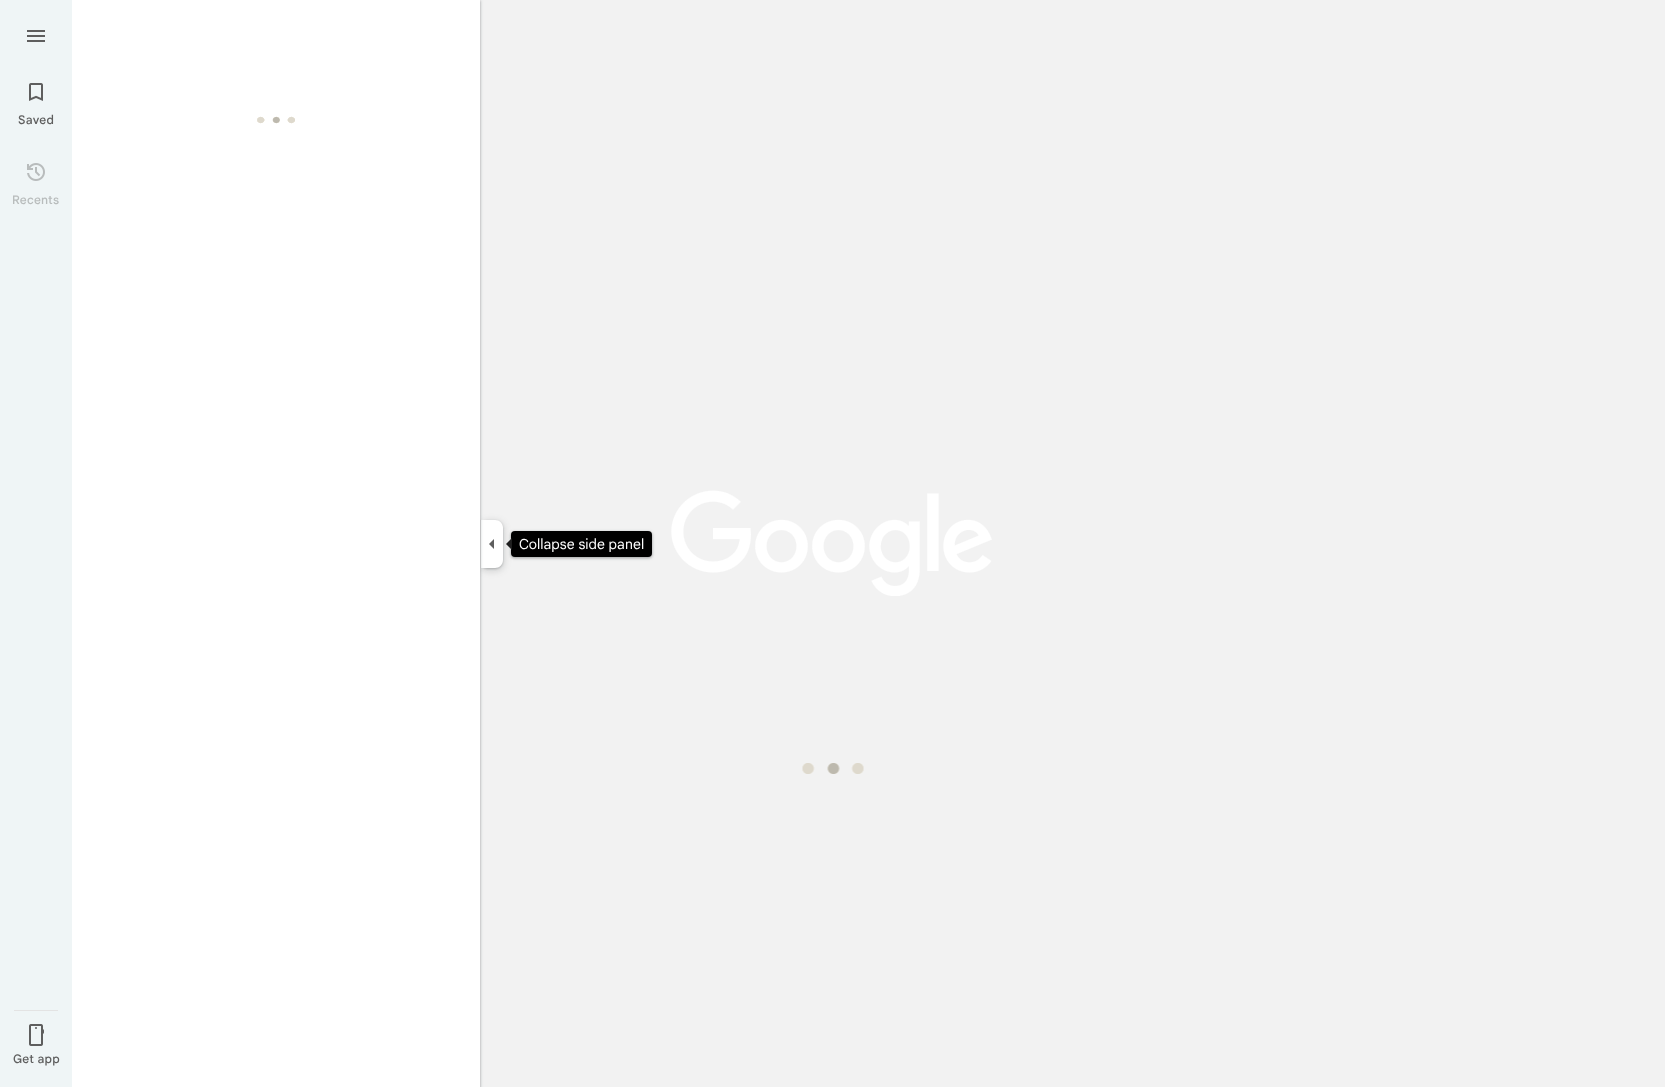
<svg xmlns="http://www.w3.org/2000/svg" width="1665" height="1087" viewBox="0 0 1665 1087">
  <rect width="100%" height="100%" fill="rgb(242,242,242)"/>
  <rect x="478" y="520" width="27" height="52" rx="10" fill="rgba(60,64,67,0.15)" filter="blur(3px)"/>
  <rect x="480" y="521" width="23" height="48" rx="8" fill="rgba(60,64,67,0.3)" filter="blur(1px)"/>
  <path d="M480 520H495C499.5 520 503 523.5 503 528V560C503 564.5 499.5 568 495 568H480Z" fill="rgb(255,255,255)"/>
  <rect x="480" y="520" width="1" height="48" fill="rgb(227,227,227)"/>
  <rect x="71" y="0" width="410" height="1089" fill="rgba(60,64,67,0.15)" filter="blur(1.5px)"/>
  <rect x="72" y="1" width="408" height="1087" fill="rgba(60,64,67,0.3)" filter="blur(1px)"/>
  <rect x="0" y="0" width="72" height="1087" fill="rgb(239,245,246)"/>
  <image x="27" y="30" width="18" height="12" href="pic1.png"/>
  <image x="29" y="83" width="14" height="18" href="pic2.png"/>
  <text x="18" y="124" font-family="Google Sans" font-size="12" font-weight="500" letter-spacing="0.25" fill="rgb(94,94,94)">Saved</text>
  <image x="27" y="163" width="18" height="18" href="pic3.png"/>
  <text x="12" y="204" font-family="Google Sans" font-size="12" font-weight="500" letter-spacing="0.25" fill="rgb(184,188,188)">Recents</text>
  <rect x="14" y="1010" width="44" height="1" fill="rgb(227,227,227)"/>
  <image x="29" y="1024" width="15" height="22" href="pic4.png"/>
  <text x="13" y="1063" font-family="Google Sans" font-size="12" font-weight="500" letter-spacing="0.25" fill="rgb(94,94,94)">Get app</text>
  <rect x="72" y="0" width="408" height="1087" fill="rgb(255,255,255)"/>
  <image x="257" y="116" width="38" height="8" href="pic5.png"/>
  <path d="M494 549L489 544L494 539Z" fill="rgb(94,94,94)"/>
  <rect x="510" y="531" width="143" height="28" rx="5" fill="rgba(60,64,67,0.15)" filter="blur(1.5px)"/>
  <rect x="511" y="532" width="141" height="26" rx="4" fill="rgba(60,64,67,0.3)" filter="blur(1px)"/>
  <rect x="511" y="531" width="141" height="26" rx="4" fill="rgb(0,0,0)"/>
  <path d="M512 538V550L506 544Z" fill="rgb(31,31,31)"/>
  <text x="519" y="549" font-family="Google Sans" font-size="14" letter-spacing="0.1" fill="rgb(255,255,255)">Collapse side panel</text>
  <image x="671" y="490" width="321" height="106" href="pic6.png"/>
  <image x="802" y="763" width="62" height="11" href="pic7.png"/>
</svg>
